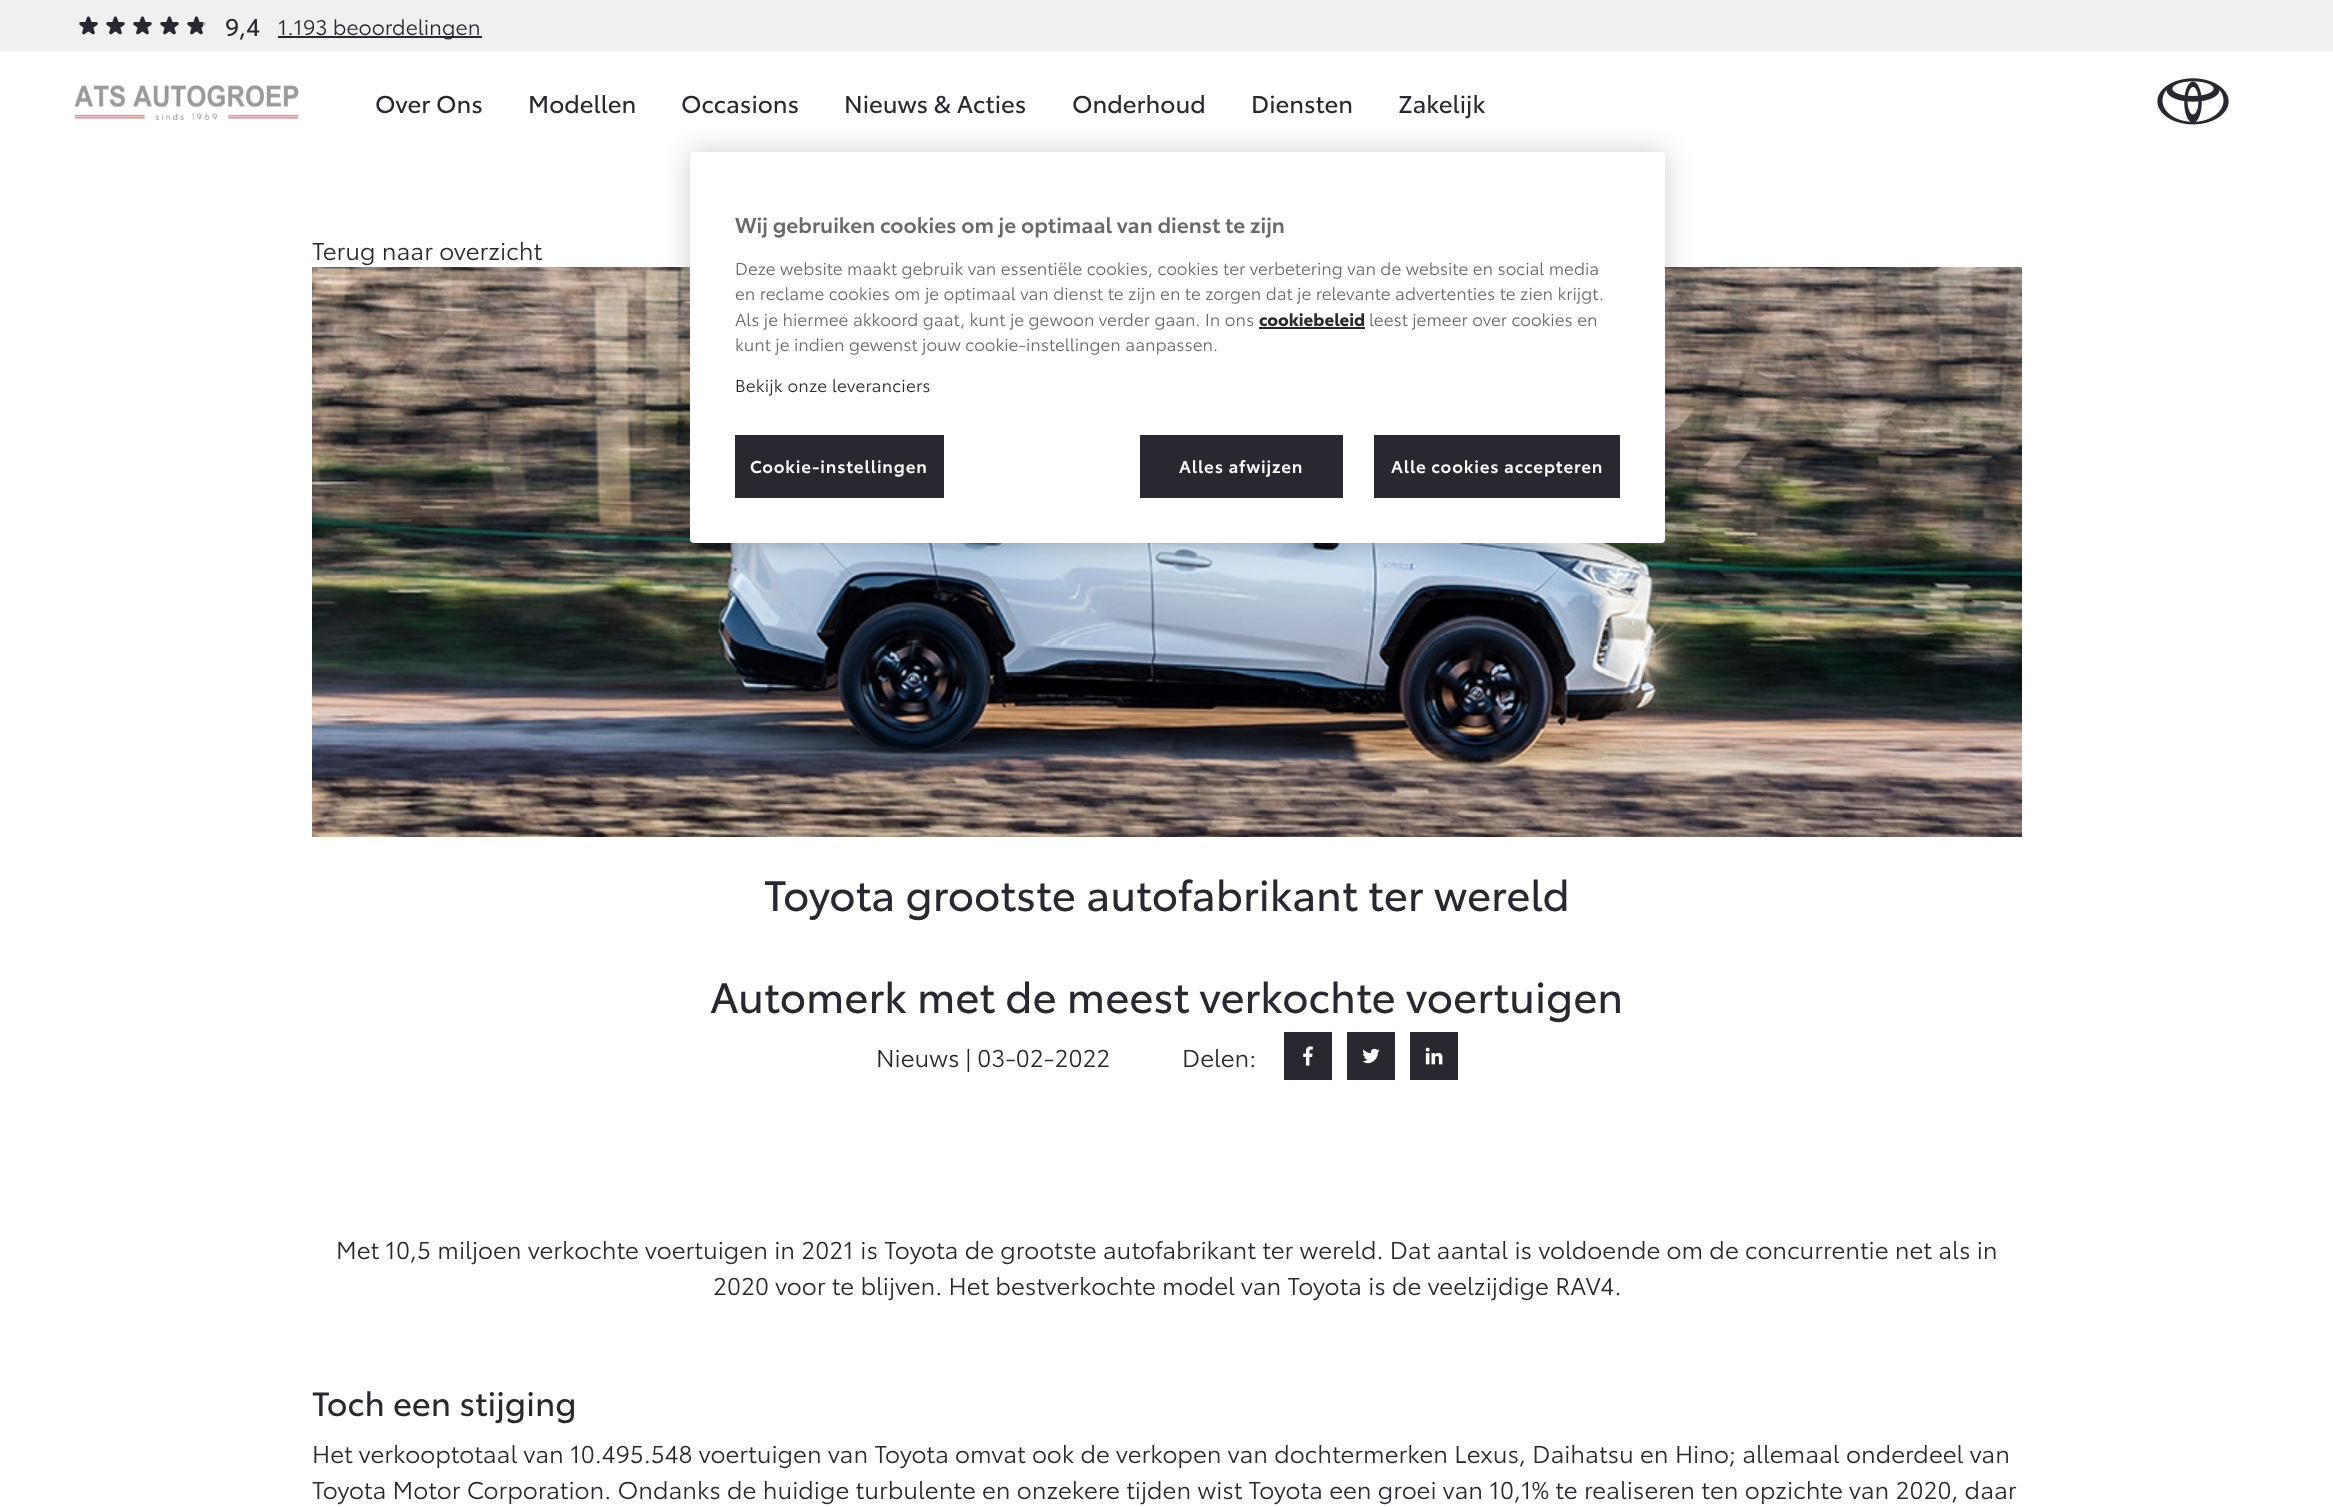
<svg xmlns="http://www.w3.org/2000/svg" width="2333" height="1507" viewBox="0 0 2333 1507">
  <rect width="100%" height="100%" fill="rgb(255,255,255)"/>
  <rect x="0" y="0" width="2333" height="51" fill="rgb(240,240,240)"/>
  <image x="79" y="16" width="127" height="19" href="pic1.png"/>
  <image x="79" y="16" width="124" height="19" href="pic2.png"/>
  <text x="225" y="36" font-family="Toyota" font-size="24" fill="rgb(40,40,48)">9,4</text>
  <rect x="278" y="36" width="204" height="2" fill="rgb(40,40,48)"/>
  <text x="278" y="35" font-family="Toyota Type" font-size="21" fill="rgb(40,40,48)">1.193 beoordelingen</text>
  <image x="75" y="85" width="224" height="35" href="pic3.png"/>
  <g font-family="Toyota" font-size="24" fill="rgb(40,40,48)">
    <text x="375" y="113">Over Ons</text>
    <text x="528" y="113">Modellen</text>
    <text x="681" y="113">Occasions</text>
    <text x="844" y="113">Nieuws &amp; Acties</text>
    <text x="1072" y="113">Onderhoud</text>
    <text x="1251" y="113">Diensten</text>
    <text x="1398" y="113">Zakelijk</text>
  </g>
  <image x="2157" y="78" width="72" height="47" href="pic4.png"/>
  <image x="312" y="267" width="1710" height="570" href="pic5.png"/>
  <rect x="690" y="152" width="975" height="391" rx="4" fill="rgba(0,0,0,0.2)" filter="blur(13.5px)"/>
  <rect x="690" y="152" width="975" height="391" rx="4" fill="rgb(255,255,255)"/>
  <text x="735" y="233" font-family="Toyota Type" font-size="21" font-weight="600" fill="rgb(105,105,105)">Wij gebruiken cookies om je optimaal van dienst te zijn</text>
  <g font-family="Toyota Type" font-size="17.07" fill="rgb(105,105,105)">
    <text>
      <tspan x="735" y="275">Deze website maakt gebruik van essentiële cookies, cookies ter verbetering van de website en social media</tspan>
      <tspan x="735" y="300">en reclame cookies om je optimaal van dienst te zijn en te zorgen dat je relevante advertenties te zien krijgt.</tspan>
      <tspan x="735" y="326">Als je hiermee akkoord gaat, kunt je gewoon verder gaan. In ons</tspan>
    </text>
  </g>
  <text x="1259" y="326" font-family="Toyota" font-size="17.07" font-weight="bold" fill="rgb(40,40,48)">cookiebeleid</text>
  <rect x="1259" y="327" width="106" height="2" fill="rgb(40,40,48)"/>
  <g font-family="Toyota Type" font-size="17.07" fill="rgb(105,105,105)">
    <text x="1369" y="326">leest jemeer over cookies en</text>
    <text x="735" y="351">kunt je indien gewenst jouw cookie-instellingen aanpassen.</text>
  </g>
  <text x="735" y="392" font-family="Toyota Type" font-size="17.07" letter-spacing="0.2" fill="rgb(40,40,48)">Bekijk onze leveranciers</text>
  <rect x="735" y="435" width="209" height="63" fill="rgb(40,40,48)"/>
  <text x="750" y="473" font-family="Toyota Type" font-size="17.07" font-weight="600" letter-spacing="0.85" fill="rgb(255,255,255)">Cookie-instellingen</text>
  <rect x="1140" y="435" width="203" height="63" fill="rgb(40,40,48)"/>
  <text x="1179" y="473" font-family="Toyota Type" font-size="17.07" font-weight="600" letter-spacing="0.85" fill="rgb(255,255,255)">Alles afwijzen</text>
  <rect x="1374" y="435" width="246" height="63" fill="rgb(40,40,48)"/>
  <text x="1391" y="473" font-family="Toyota Type" font-size="17.07" font-weight="600" letter-spacing="0.85" fill="rgb(255,255,255)">Alle cookies accepteren</text>
  <text x="312" y="260" font-family="Toyota Type" font-size="24" fill="rgb(40,40,48)">Terug naar overzicht</text>
  <g font-family="Toyota" font-size="42" fill="rgb(40,40,48)">
    <text x="764" y="911">Toyota grootste autofabrikant ter wereld</text>
    <text x="710" y="1013">Automerk met de meest verkochte voertuigen</text>
  </g>
  <g font-family="Toyota Type" font-size="24" fill="rgb(40,40,40)">
    <text x="876" y="1067">Nieuws | 03-02-2022</text>
    <text x="1182" y="1067">Delen:</text>
  </g>
  <rect x="1284" y="1032" width="48" height="48" fill="rgb(40,40,48)"/>
  <image x="1303" y="1046" width="10" height="20" href="pic6.png"/>
  <rect x="1347" y="1032" width="48" height="48" fill="rgb(40,40,48)"/>
  <image x="1362" y="1048" width="18" height="16" href="pic7.png"/>
  <rect x="1410" y="1032" width="48" height="48" fill="rgb(40,40,48)"/>
  <image x="1425" y="1047" width="18" height="18" href="pic8.png"/>
  <g font-family="Toyota Type" font-size="24" fill="rgb(40,40,48)">
    <text x="336" y="1259">Met 10,5 miljoen verkochte voertuigen in 2021 is Toyota de grootste autofabrikant ter wereld. Dat aantal is voldoende om de concurrentie net als in</text>
    <text x="713" y="1295">2020 voor te blijven. Het bestverkochte model van Toyota is de veelzijdige RAV4.</text>
  </g>
  <text x="312" y="1416" font-family="Toyota" font-size="33" fill="rgb(40,40,48)">Toch een stijging</text>
  <g font-family="Toyota Type" font-size="24" fill="rgb(40,40,48)">
    <text>
      <tspan x="312" y="1463">Het verkooptotaal van 10.495.548 voertuigen van Toyota omvat ook de verkopen van dochtermerken Lexus, Daihatsu en Hino; allemaal onderdeel van</tspan>
      <tspan x="312" y="1499">Toyota Motor Corporation. Ondanks de huidige turbulente en onzekere tijden wist Toyota een groei van 10,1% te realiseren ten opzichte van 2020, daar</tspan>
    </text>
  </g>
</svg>
